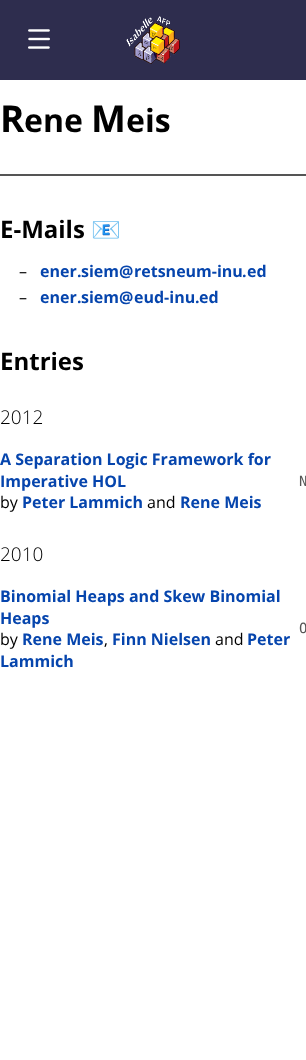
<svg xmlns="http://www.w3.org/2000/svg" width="306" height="1060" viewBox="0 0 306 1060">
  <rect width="100%" height="100%" fill="rgb(255,255,255)"/>
  <rect x="0" y="0" width="306" height="80" fill="rgb(46,45,78)"/>
  <image x="28" y="29" width="22" height="20" href="pic1.png"/>
  <image x="126" y="16" width="54" height="48" href="pic2.png"/>
  <rect x="0" y="174" width="306" height="2" fill="rgb(85,85,85)"/>
  <text x="0" y="132" font-family="Open Sans" font-size="37" font-weight="bold" fill="rgb(0,0,0)">R</text>
  <text x="24" y="132" font-family="Open Sans" font-size="32" font-weight="bold" fill="rgb(0,0,0)">ene</text>
  <text x="91" y="132" font-family="Open Sans" font-size="37" font-weight="bold" fill="rgb(0,0,0)">M</text>
  <text x="126" y="132" font-family="Open Sans" font-size="32" font-weight="bold" fill="rgb(0,0,0)">eis</text>
  <text x="0" y="238" font-family="Open Sans" font-size="24" font-weight="bold" fill="rgb(0,0,0)">E-Mails</text>
  <text x="91" y="238" font-family="Noto Color Emoji" font-size="24" font-weight="bold" fill="rgb(0,0,0)">📧</text>
  <text x="19" y="277" font-family="Open Sans" font-size="16" fill="rgb(0,0,0)">–</text>
  <g font-family="Open Sans" font-size="16" font-weight="bold" fill="rgb(6,69,173)">
    <text x="40" y="277">ener</text>
    <text x="81" y="277">siem</text>
    <text x="119" y="277">@</text>
    <text x="134" y="277">retsneum-inu</text>
    <text x="247" y="277">ed</text>
    <text x="77" y="277">.</text>
    <text x="242" y="277">.</text>
  </g>
  <text x="19" y="303" font-family="Open Sans" font-size="16" fill="rgb(0,0,0)">–</text>
  <g font-family="Open Sans" font-size="16" font-weight="bold" fill="rgb(6,69,173)">
    <text x="40" y="303">ener</text>
    <text x="81" y="303">siem</text>
    <text x="119" y="303">@</text>
    <text x="134" y="303">eud-inu</text>
    <text x="199" y="303">ed</text>
    <text x="77" y="303">.</text>
    <text x="195" y="303">.</text>
  </g>
  <text x="0" y="370" font-family="Open Sans" font-size="24" font-weight="bold" fill="rgb(0,0,0)">Entries</text>
  <text x="0" y="424" font-family="Open Sans" font-size="19" font-weight="300" fill="rgb(0,0,0)">2012</text>
  <g font-family="Open Sans" font-size="16" font-weight="bold" fill="rgb(6,69,173)">
    <text>
      <tspan x="0" y="465">A Separation Logic Framework for</tspan>
      <tspan x="0" y="487">Imperative HOL</tspan>
    </text>
  </g>
  <text x="0" y="508" font-family="Open Sans" font-size="16" fill="rgb(0,0,0)">by</text>
  <text x="22" y="508" font-family="Open Sans" font-size="16" font-weight="bold" fill="rgb(6,69,173)">Peter Lammich</text>
  <text x="147" y="508" font-family="Open Sans" font-size="16" fill="rgb(0,0,0)">and</text>
  <text x="180" y="508" font-family="Open Sans" font-size="16" font-weight="bold" fill="rgb(6,69,173)">Rene Meis</text>
  <text x="299" y="486" font-family="DejaVu Sans Mono" font-size="14" fill="rgb(85,85,85)">N</text>
  <text x="0" y="561" font-family="Open Sans" font-size="19" font-weight="300" fill="rgb(0,0,0)">2010</text>
  <g font-family="Open Sans" font-size="16" font-weight="bold" fill="rgb(6,69,173)">
    <text>
      <tspan x="0" y="602">Binomial Heaps and Skew Binomial</tspan>
      <tspan x="0" y="624">Heaps</tspan>
    </text>
  </g>
  <text x="0" y="645" font-family="Open Sans" font-size="16" fill="rgb(0,0,0)">by</text>
  <text x="22" y="645" font-family="Open Sans" font-size="16" font-weight="bold" fill="rgb(6,69,173)">Rene Meis</text>
  <text x="104" y="645" font-family="Open Sans" font-size="16" fill="rgb(0,0,0)">,</text>
  <text x="112" y="645" font-family="Open Sans" font-size="16" font-weight="bold" fill="rgb(6,69,173)">Finn Nielsen</text>
  <text x="215" y="645" font-family="Open Sans" font-size="16" fill="rgb(0,0,0)">and</text>
  <g font-family="Open Sans" font-size="16" font-weight="bold" fill="rgb(6,69,173)">
    <text x="247" y="645">Peter</text>
    <text x="0" y="667">Lammich</text>
  </g>
  <text x="299" y="633" font-family="DejaVu Sans Mono" font-size="14" fill="rgb(85,85,85)">O</text>
</svg>
